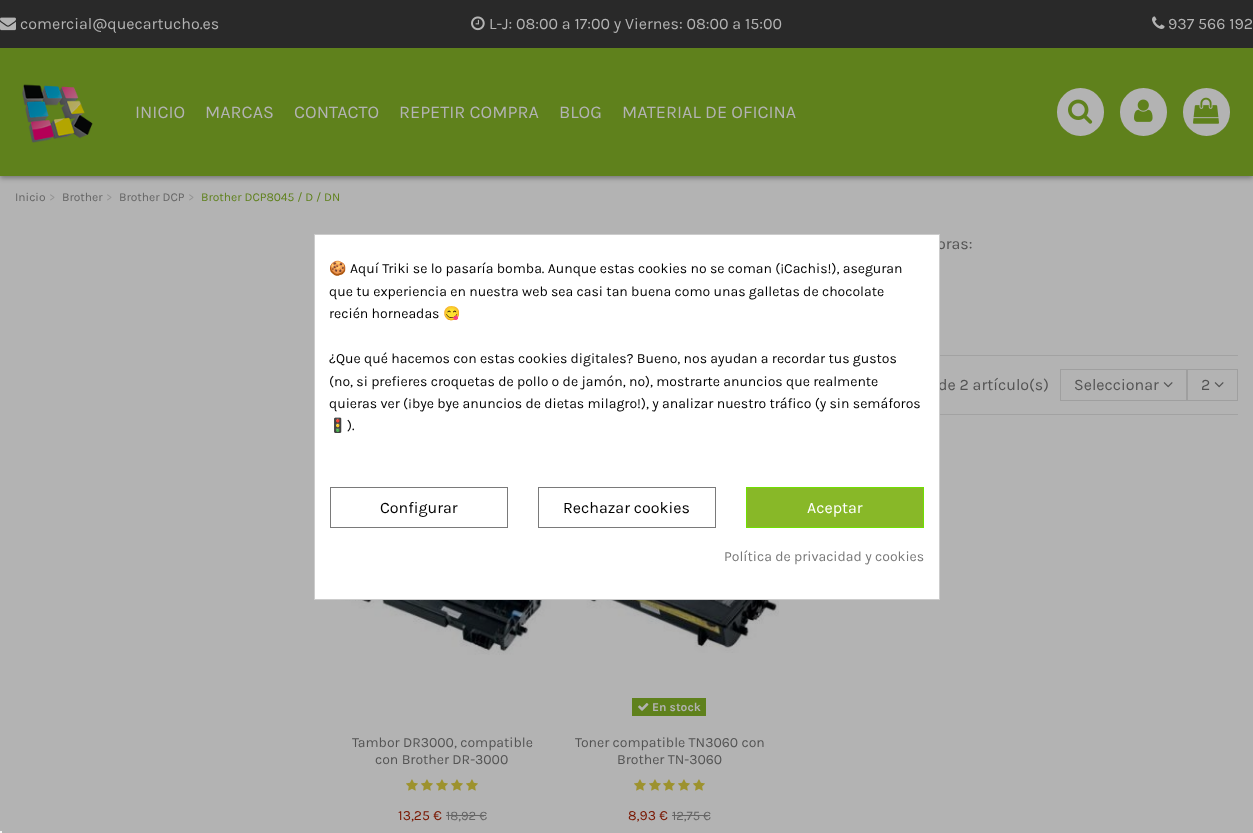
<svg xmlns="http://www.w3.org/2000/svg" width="1253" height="833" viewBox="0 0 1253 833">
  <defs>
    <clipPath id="clip1"><rect x="330" y="259" width="594" height="208"/></clipPath>
  </defs>
  <rect width="100%" height="100%" fill="rgb(179,179,179)"/>
  <rect x="0" y="2" width="1253" height="176" fill="rgba(0,0,0,0.35)" filter="blur(2.5px)"/>
  <rect x="0" y="48" width="1253" height="128" fill="rgb(95,129,28)"/>
  <rect x="0" y="0" width="1253" height="48" fill="rgb(41,41,41)"/>
  <image x="0" y="17" width="16" height="14" href="pic1.png"/>
  <text x="20" y="29" font-family="Karla" font-size="16" fill="rgb(179,179,179)">comercial@quecartucho.es</text>
  <image x="471" y="16" width="14" height="15" href="pic2.png"/>
  <text x="489" y="29" font-family="Karla" font-size="16" fill="rgb(179,179,179)">L-J: 08:00 a 17:00 y Viernes: 08:00 a 15:00</text>
  <image x="1152" y="16" width="13" height="13" href="pic3.png"/>
  <text x="1168" y="29" font-family="Karla" font-size="16" fill="rgb(179,179,179)">937 566 192</text>
  <image x="22" y="84" width="71" height="59" href="pic4.png"/>
  <g font-family="Karla" font-size="18" fill="rgb(179,179,179)">
    <text x="135" y="118">INICIO</text>
    <text x="205" y="118">MARCAS</text>
    <text x="294" y="118">CONTACTO</text>
    <text x="399" y="118">REPETIR COMPRA</text>
    <text x="559" y="118">BLOG</text>
    <text x="622" y="118">MATERIAL DE OFICINA</text>
  </g>
  <rect x="1057" y="88" width="47" height="48" rx="23.5" fill="rgb(179,179,179)"/>
  <image x="1068" y="99" width="25" height="25" href="pic5.png"/>
  <rect x="1120" y="88" width="47" height="48" rx="23.5" fill="rgb(179,179,179)"/>
  <image x="1134" y="99" width="19" height="23" href="pic6.png"/>
  <rect x="1183" y="88" width="47" height="48" rx="23.5" fill="rgb(179,179,179)"/>
  <image x="1193" y="97" width="26" height="27" href="pic7.png"/>
  <text x="15" y="201" font-family="Karla" font-size="12" fill="rgb(100,100,100)">Inicio</text>
  <text x="49" y="201" font-family="Karla" font-size="12" fill="rgb(147,147,147)">&gt;</text>
  <text x="62" y="201" font-family="Karla" font-size="12" fill="rgb(100,100,100)">Brother</text>
  <text x="106" y="201" font-family="Karla" font-size="12" fill="rgb(147,147,147)">&gt;</text>
  <text x="119" y="201" font-family="Karla" font-size="12" fill="rgb(100,100,100)">Brother DCP</text>
  <text x="188" y="201" font-family="Karla" font-size="12" fill="rgb(147,147,147)">&gt;</text>
  <text x="201" y="201" font-family="Karla" font-size="12" fill="rgb(95,129,28)">Brother DCP8045 / D / DN</text>
  <text x="937" y="249" font-family="Karla" font-size="16" fill="rgb(83,83,83)">oras:</text>
  <rect x="940" y="355" width="298" height="1" fill="rgb(162,162,162)"/>
  <rect x="940" y="414" width="298" height="1" fill="rgb(162,162,162)"/>
  <text x="938" y="390" font-family="Karla" font-size="16" fill="rgb(83,83,83)">de 2 artículo(s)</text>
  <rect x="1060.5" y="369.5" width="126" height="31" fill="none" stroke="rgb(159,159,159)"/>
  <text x="1074" y="390" font-family="Karla" font-size="16" fill="rgb(83,83,83)">Seleccionar</text>
  <image x="1163" y="382" width="10" height="6" href="pic8.png"/>
  <rect x="1187.5" y="369.5" width="50" height="31" fill="none" stroke="rgb(159,159,159)"/>
  <text x="1201" y="390" font-family="Karla" font-size="16" fill="rgb(83,83,83)">2</text>
  <image x="1214" y="382" width="10" height="6" href="pic8.png"/>
  <image x="328" y="600" width="228" height="55" href="pic9.png"/>
  <g font-family="Karla" font-size="14" fill="rgb(83,83,83)">
    <text x="352" y="747">Tambor DR3000, compatible</text>
    <text x="375" y="764">con Brother DR-3000</text>
  </g>
  <image x="406" y="779" width="12" height="12" href="pic10.png"/>
  <image x="421" y="779" width="12" height="12" href="pic10.png"/>
  <image x="436" y="779" width="12" height="12" href="pic10.png"/>
  <image x="451" y="779" width="12" height="12" href="pic10.png"/>
  <image x="466" y="779" width="12" height="12" href="pic10.png"/>
  <text x="398" y="820" font-family="Karla" font-size="14" fill="rgb(121,22,0)">13,25 €</text>
  <text x="446" y="820" font-family="Karla" font-size="13" fill="rgb(100,100,100)">18,92 €</text>
  <rect x="446" y="815" width="40" height="1" fill="rgb(102,102,102)"/>
  <image x="556" y="600" width="223" height="53" href="pic11.png"/>
  <rect x="632" y="698" width="74" height="18" fill="rgb(95,129,28)"/>
  <image x="638" y="703" width="11" height="8" href="pic12.png"/>
  <text x="652" y="711" font-family="Karla" font-size="12" font-weight="bold" fill="rgb(179,179,179)">En stock</text>
  <g font-family="Karla" font-size="14" fill="rgb(83,83,83)">
    <text x="575" y="747">Toner compatible TN3060 con</text>
    <text x="617" y="764">Brother TN-3060</text>
  </g>
  <image x="634" y="779" width="12" height="12" href="pic10.png"/>
  <image x="649" y="779" width="12" height="12" href="pic10.png"/>
  <image x="663" y="779" width="12" height="12" href="pic10.png"/>
  <image x="678" y="779" width="12" height="12" href="pic10.png"/>
  <image x="693" y="779" width="12" height="12" href="pic10.png"/>
  <text x="628" y="820" font-family="Karla" font-size="14" fill="rgb(121,22,0)">8,93 €</text>
  <text x="672" y="820" font-family="Karla" font-size="13" fill="rgb(100,100,100)">12,75 €</text>
  <rect x="672" y="815" width="38" height="1" fill="rgb(102,102,102)"/>
  <rect x="314.5" y="234.5" width="625" height="365" fill="rgb(255,255,255)" stroke="rgb(204,204,204)"/>
  <g clip-path="url(#clip1)">
    <text x="329" y="273" font-family="Noto Color Emoji" font-size="14" fill="rgb(0,0,0)">🍪</text>
  </g>
  <g font-family="Karla" font-size="14" fill="rgb(0,0,0)">
    <text x="350" y="273">Aquí Triki se lo pasaría bomba. Aunque estas cookies no se coman (¡Cachis!), aseguran</text>
    <text>
      <tspan x="329" y="296">que tu experiencia en nuestra web sea casi tan buena como unas galletas de chocolate</tspan>
      <tspan x="329" y="318">recién horneadas</tspan>
    </text>
  </g>
  <text x="443" y="318" font-family="Noto Color Emoji" font-size="14" fill="rgb(0,0,0)">😋</text>
  <g font-family="Karla" font-size="14" fill="rgb(0,0,0)">
    <text>
      <tspan x="329" y="363">¿Que qué hacemos con estas cookies digitales? Bueno, nos ayudan a recordar tus gustos</tspan>
      <tspan x="329" y="386">(no, si prefieres croquetas de pollo o de jamón, no), mostrarte anuncios que realmente</tspan>
      <tspan x="329" y="408">quieras ver (¡bye bye anuncios de dietas milagro!), y analizar nuestro tráfico (y sin semáforos</tspan>
    </text>
  </g>
  <g clip-path="url(#clip1)">
    <text x="329" y="430" font-family="Noto Color Emoji" font-size="14" fill="rgb(0,0,0)">🚦</text>
  </g>
  <text x="347" y="430" font-family="Karla" font-size="14" fill="rgb(0,0,0)">).</text>
  <rect x="330.5" y="487.5" width="177" height="40" fill="none" stroke="rgb(122,122,122)"/>
  <text x="380" y="513" font-family="Karla" font-size="16" fill="rgb(0,0,0)">Configurar</text>
  <rect x="538.5" y="487.5" width="177" height="40" fill="none" stroke="rgb(122,122,122)"/>
  <text x="563" y="513" font-family="Karla" font-size="16" fill="rgb(0,0,0)">Rechazar cookies</text>
  <rect x="746.5" y="487.5" width="177" height="40" fill="rgb(136,184,40)" stroke="rgb(112,224,0)"/>
  <text x="807" y="513" font-family="Karla" font-size="16" fill="rgb(255,255,255)">Aceptar</text>
  <text x="724" y="561" font-family="Karla" font-size="14" fill="rgb(119,119,119)">Política de privacidad y cookies</text>
  <rect x="0" y="831" width="2" height="2" fill="rgb(245,245,245)"/>
</svg>
